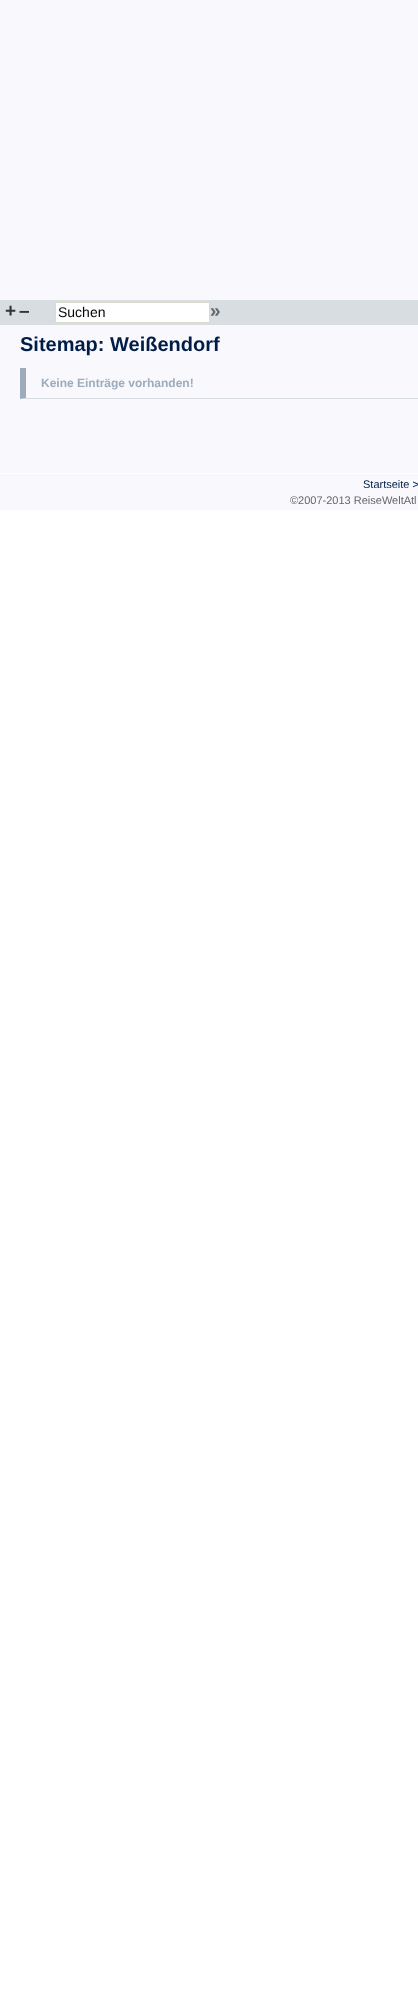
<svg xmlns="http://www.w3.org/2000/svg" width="418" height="2003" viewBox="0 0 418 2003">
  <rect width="100%" height="100%" fill="rgb(255,255,255)"/>
  <rect x="0" y="0" width="418" height="510" fill="rgb(249,249,253)"/>
  <rect x="0" y="300" width="418" height="25" fill="rgb(216,221,226)"/>
  <g font-family="Liberation Sans" font-size="19" font-weight="bold" fill="rgb(51,51,51)">
    <text x="5" y="317">+</text>
    <text x="19" y="317">–</text>
  </g>
  <rect x="55.5" y="302.5" width="154" height="20" fill="rgb(255,255,255)" stroke="rgb(220,220,206)"/>
  <text x="58" y="317" font-family="Liberation Sans" font-size="14" fill="rgb(5,5,5)">Suchen</text>
  <text x="210" y="317" font-family="Liberation Sans" font-size="19" font-weight="bold" fill="rgb(102,102,102)">»</text>
  <text x="20" y="351" font-family="Liberation Sans" font-size="20" font-weight="bold" fill="rgb(0,29,72)">Sitemap: Weißendorf</text>
  <path d="M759 399H20L26 398H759Z" fill="rgb(216,221,226)"/>
  <path d="M20 399V368H26V398Z" fill="rgb(157,171,186)"/>
  <text x="41" y="387" font-family="Liberation Sans" font-size="12" font-weight="bold" fill="rgb(157,171,186)">Keine Einträge vorhanden!</text>
  <rect x="0" y="473" width="418" height="1" fill="rgb(255,255,255)"/>
  <text x="363" y="488" font-family="Liberation Sans" font-size="11" fill="rgb(0,29,72)">Startseite &gt;</text>
  <text x="290" y="504" font-family="Liberation Sans" font-size="11" fill="rgb(102,102,102)">©2007-2013 ReiseWeltAtl</text>
</svg>
